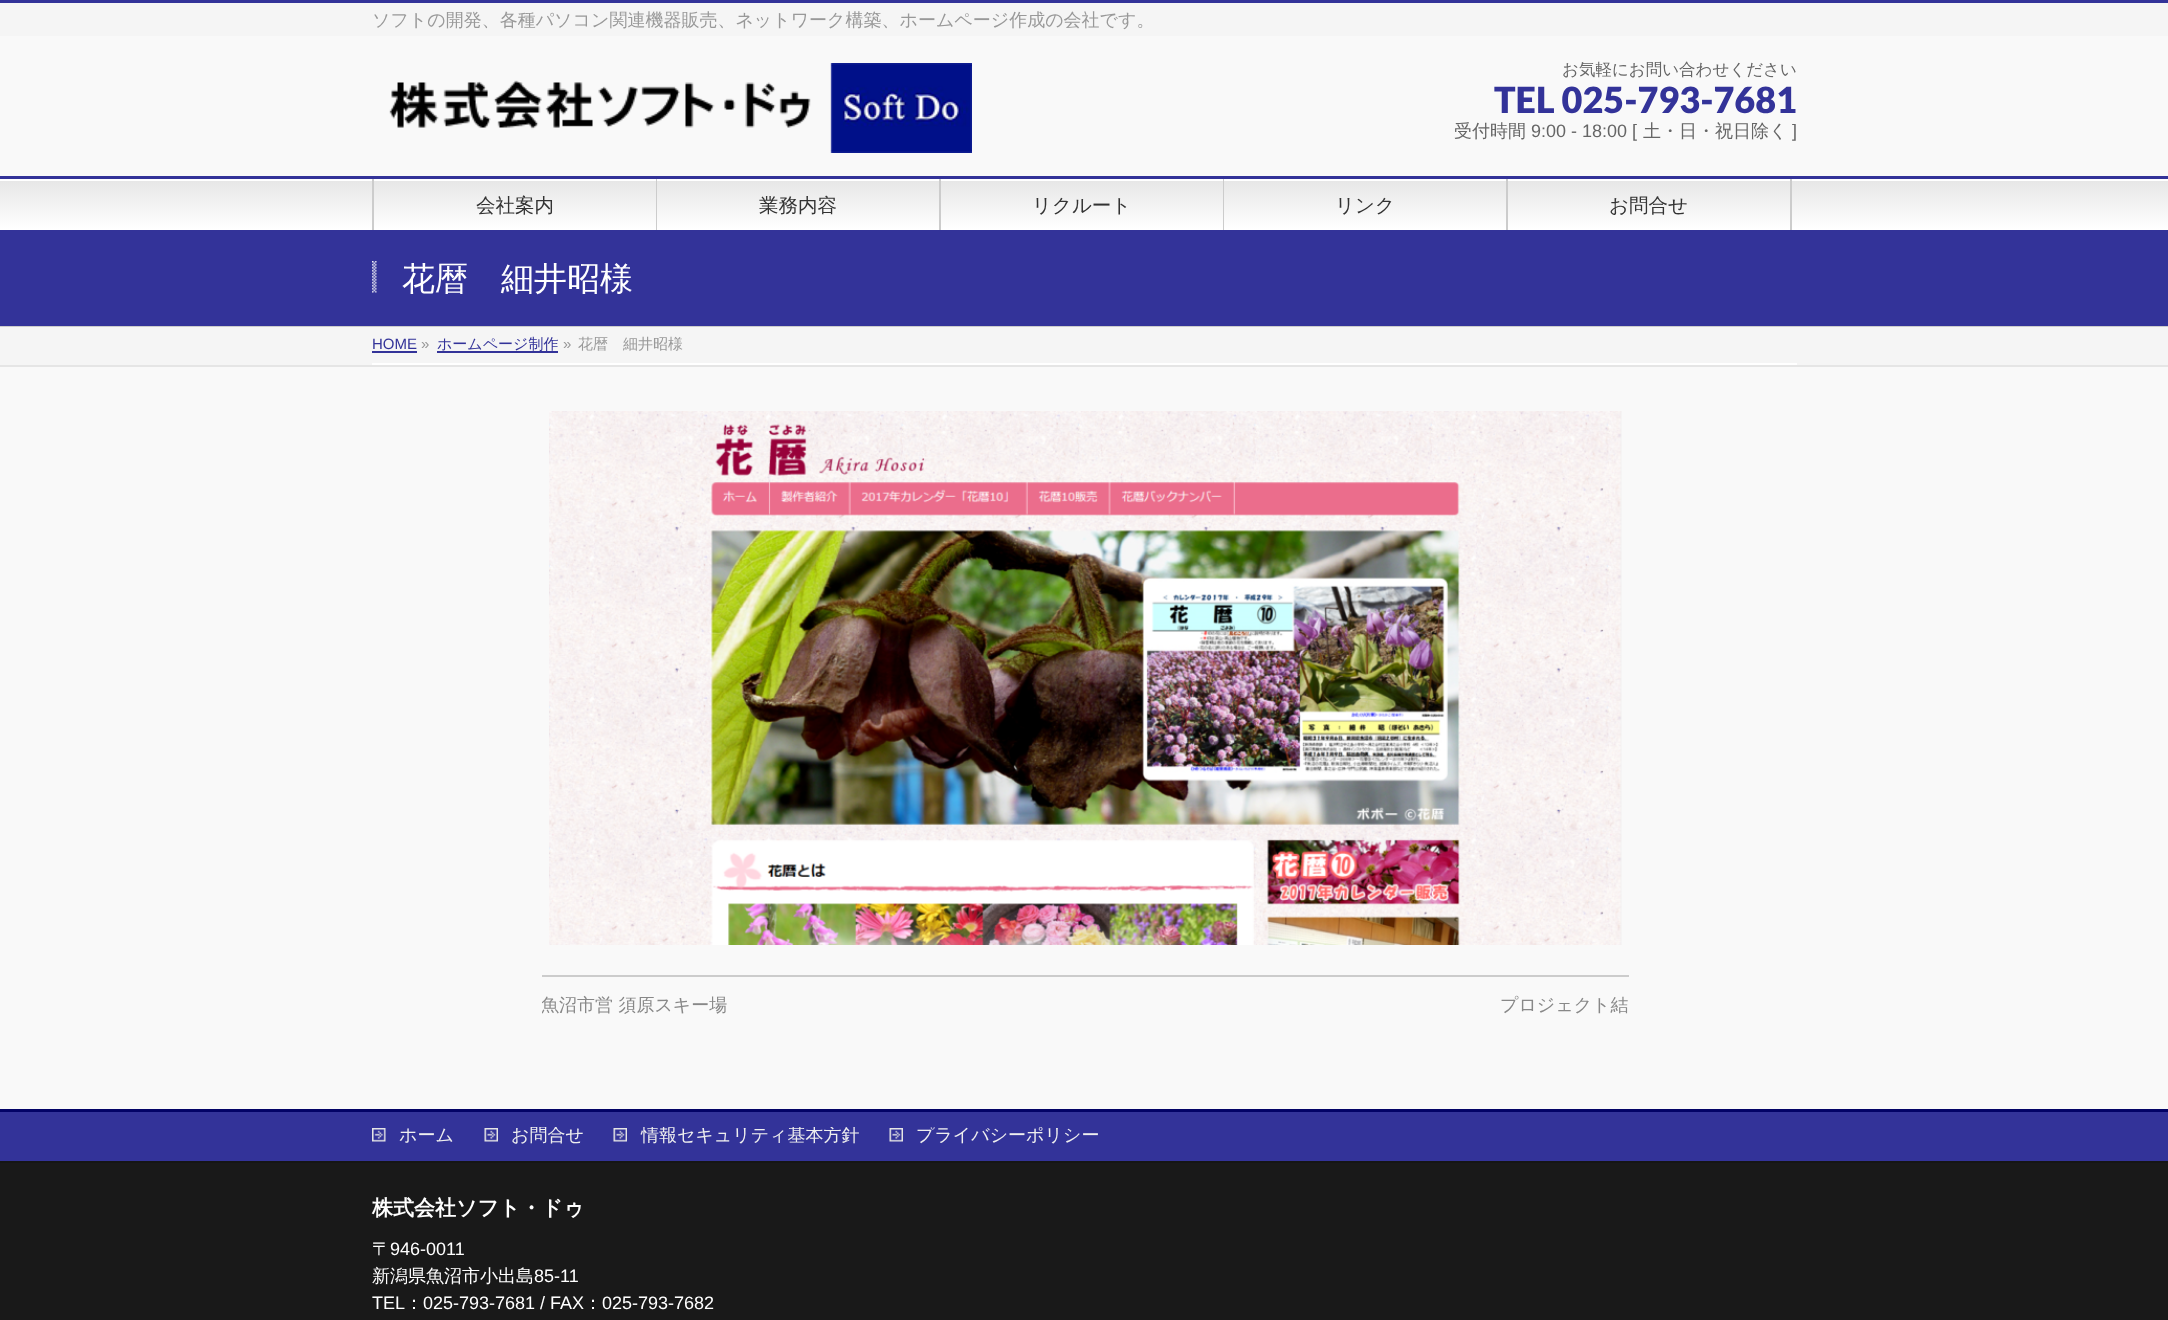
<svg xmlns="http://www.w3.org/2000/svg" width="2168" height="1320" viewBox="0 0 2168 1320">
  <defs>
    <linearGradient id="g1" gradientUnits="userSpaceOnUse" x1="1085" y1="178" x2="1085" y2="230"><stop offset="0" stop-color="rgb(229,229,229)"/><stop offset="1" stop-color="rgb(255,255,255)"/></linearGradient>
    <clipPath id="clip1"><rect x="542" y="977" width="1087" height="64"/></clipPath>
    <clipPath id="clip2"><rect x="372" y="1127" width="1425" height="19"/></clipPath>
  </defs>
  <rect width="100%" height="100%" fill="rgb(249,249,249)"/>
  <rect x="0" y="3" width="2168" height="33" fill="rgb(245,245,245)"/>
  <rect x="0" y="0" width="2168" height="3" fill="rgb(51,51,153)"/>
  <text x="372" y="26" font-family="WenQuanYi Zen Hei" font-size="18" font-weight="500" fill="rgb(153,153,153)">ソフトの開発、各種パソコン関連機器販売、ネットワーク構築、ホームページ作成の会社です。</text>
  <image x="389" y="63" width="583" height="90" href="pic1.png"/>
  <text x="1562" y="75" font-family="WenQuanYi Zen Hei" font-size="16.5" font-weight="500" fill="rgb(102,102,102)">お気軽にお問い合わせください</text>
  <text x="1494" y="113" font-family="Lato" font-size="36" font-weight="900" fill="rgb(51,51,153)">TEL 025-793-7681</text>
  <text x="1454" y="137" font-family="WenQuanYi Zen Hei" font-size="18" font-weight="500" fill="rgb(102,102,102)">受付時間</text>
  <text x="1531" y="137" font-family="Liberation Sans" font-size="18" fill="rgb(102,102,102)">9:00 - 18:00 [</text>
  <text x="1643" y="137" font-family="WenQuanYi Zen Hei" font-size="18" font-weight="500" fill="rgb(102,102,102)">土・日・祝日除く</text>
  <text x="1792" y="137" font-family="Liberation Sans" font-size="18" fill="rgb(102,102,102)">]</text>
  <rect x="0" y="181" width="2168" height="49" fill="url(#g1)"/>
  <rect x="0" y="179" width="2168" height="2" fill="rgb(255,255,255)"/>
  <rect x="0" y="176" width="2168" height="3" fill="rgb(51,51,153)"/>
  <rect x="372" y="179" width="2" height="51" fill="rgb(204,204,204)"/>
  <rect x="656" y="179" width="1" height="51" fill="rgb(204,204,204)"/>
  <text x="476" y="212" font-family="WenQuanYi Zen Hei" font-size="19.5" font-weight="500" fill="rgb(51,51,51)">会社案内</text>
  <rect x="939" y="179" width="2" height="51" fill="rgb(204,204,204)"/>
  <text x="759" y="212" font-family="WenQuanYi Zen Hei" font-size="19.5" font-weight="500" fill="rgb(51,51,51)">業務内容</text>
  <rect x="1223" y="179" width="1" height="51" fill="rgb(204,204,204)"/>
  <text x="1032" y="212" font-family="WenQuanYi Zen Hei" font-size="19.5" font-weight="500" fill="rgb(51,51,51)">リクルート</text>
  <rect x="1506" y="179" width="2" height="51" fill="rgb(204,204,204)"/>
  <text x="1335" y="212" font-family="WenQuanYi Zen Hei" font-size="19.5" font-weight="500" fill="rgb(51,51,51)">リンク</text>
  <rect x="1790" y="179" width="2" height="51" fill="rgb(204,204,204)"/>
  <text x="1609" y="212" font-family="WenQuanYi Zen Hei" font-size="19.5" font-weight="500" fill="rgb(51,51,51)">お問合せ</text>
  <rect x="0" y="230" width="2168" height="96" fill="rgb(51,51,153)"/>
  <rect x="0" y="326" width="2168" height="1" fill="rgb(204,204,204)"/>
  <image x="372" y="261" width="5" height="32" href="pic2.png"/>
  <text x="402" y="290" font-family="WenQuanYi Zen Hei" font-size="33" font-weight="500" fill="rgb(255,255,255)">花暦　細井昭様</text>
  <rect x="0" y="327" width="2168" height="38" fill="rgb(245,245,245)"/>
  <rect x="0" y="365" width="2168" height="2" fill="rgb(229,229,229)"/>
  <rect x="372" y="363" width="1425" height="2" fill="rgb(255,255,255)"/>
  <text x="372" y="349" font-family="Liberation Sans" font-size="15" fill="rgb(51,51,153)">HOME</text>
  <rect x="372" y="351" width="45" height="2" fill="rgb(51,51,153)"/>
  <text x="421" y="349" font-family="Liberation Sans" font-size="15" fill="rgb(153,153,153)">»</text>
  <rect x="437" y="351" width="121" height="2" fill="rgb(51,51,153)"/>
  <text x="437" y="349" font-family="WenQuanYi Zen Hei" font-size="15" font-weight="500" fill="rgb(51,51,153)">ホームページ制作</text>
  <text x="563" y="349" font-family="Liberation Sans" font-size="15" fill="rgb(153,153,153)">»</text>
  <text x="578" y="349" font-family="WenQuanYi Zen Hei" font-size="15" font-weight="500" fill="rgb(153,153,153)">花暦　細井昭様</text>
  <image x="549" y="411" width="1073" height="534" href="pic3.png"/>
  <rect x="542" y="975" width="1087" height="2" fill="rgb(204,204,204)"/>
  <g clip-path="url(#clip1)">
    <text x="541" y="1011" font-family="WenQuanYi Zen Hei" font-size="18" font-weight="500" fill="rgb(136,136,136)">魚沼市営 須原スキー場</text>
  </g>
  <text x="1500" y="1011" font-family="WenQuanYi Zen Hei" font-size="18" font-weight="500" fill="rgb(136,136,136)">プロジェクト結</text>
  <rect x="0" y="1112" width="2168" height="49" fill="rgb(51,51,153)"/>
  <rect x="0" y="1109" width="2168" height="3" fill="rgb(3,3,102)"/>
  <image x="372" y="1128" width="14" height="14" href="pic4.png"/>
  <text x="399" y="1141" font-family="WenQuanYi Zen Hei" font-size="18" font-weight="500" fill="rgb(239,239,239)">ホーム</text>
  <image x="484" y="1128" width="14" height="14" href="pic5.png"/>
  <g clip-path="url(#clip2)">
    <text x="511" y="1141" font-family="WenQuanYi Zen Hei" font-size="18" font-weight="500" fill="rgb(239,239,239)">お問合せ</text>
  </g>
  <image x="613" y="1128" width="14" height="14" href="pic6.png"/>
  <g clip-path="url(#clip2)">
    <text x="641" y="1141" font-family="WenQuanYi Zen Hei" font-size="18" font-weight="500" fill="rgb(239,239,239)">情報セキュリティ基本方針</text>
  </g>
  <image x="889" y="1128" width="14" height="14" href="pic5.png"/>
  <g clip-path="url(#clip2)">
    <text x="916" y="1141" font-family="WenQuanYi Zen Hei" font-size="18" font-weight="500" fill="rgb(239,239,239)">プライバシーポリシー</text>
  </g>
  <rect x="0" y="1163" width="2168" height="157" fill="rgb(25,25,25)"/>
  <rect x="0" y="1161" width="2168" height="2" fill="rgb(21,21,21)"/>
  <text x="372" y="1215" font-family="WenQuanYi Zen Hei" font-size="21" font-weight="bold" fill="rgb(255,255,255)">株式会社ソフト・ドゥ</text>
  <text x="372" y="1255" font-family="WenQuanYi Zen Hei" font-size="18" font-weight="500" fill="rgb(255,255,255)">〒</text>
  <text x="390" y="1255" font-family="Liberation Sans" font-size="18" fill="rgb(255,255,255)">946-0011</text>
  <text x="372" y="1282" font-family="WenQuanYi Zen Hei" font-size="18" font-weight="500" fill="rgb(255,255,255)">新潟県魚沼市小出島</text>
  <g font-family="Liberation Sans" font-size="18" fill="rgb(255,255,255)">
    <text x="534" y="1282">85-11</text>
    <text x="372" y="1309">TEL</text>
  </g>
  <text x="405" y="1309" font-family="WenQuanYi Zen Hei" font-size="18" font-weight="500" fill="rgb(255,255,255)">：</text>
  <text x="423" y="1309" font-family="Liberation Sans" font-size="18" fill="rgb(255,255,255)">025-793-7681 / FAX</text>
  <text x="584" y="1309" font-family="WenQuanYi Zen Hei" font-size="18" font-weight="500" fill="rgb(255,255,255)">：</text>
  <text x="602" y="1309" font-family="Liberation Sans" font-size="18" fill="rgb(255,255,255)">025-793-7682</text>
</svg>
